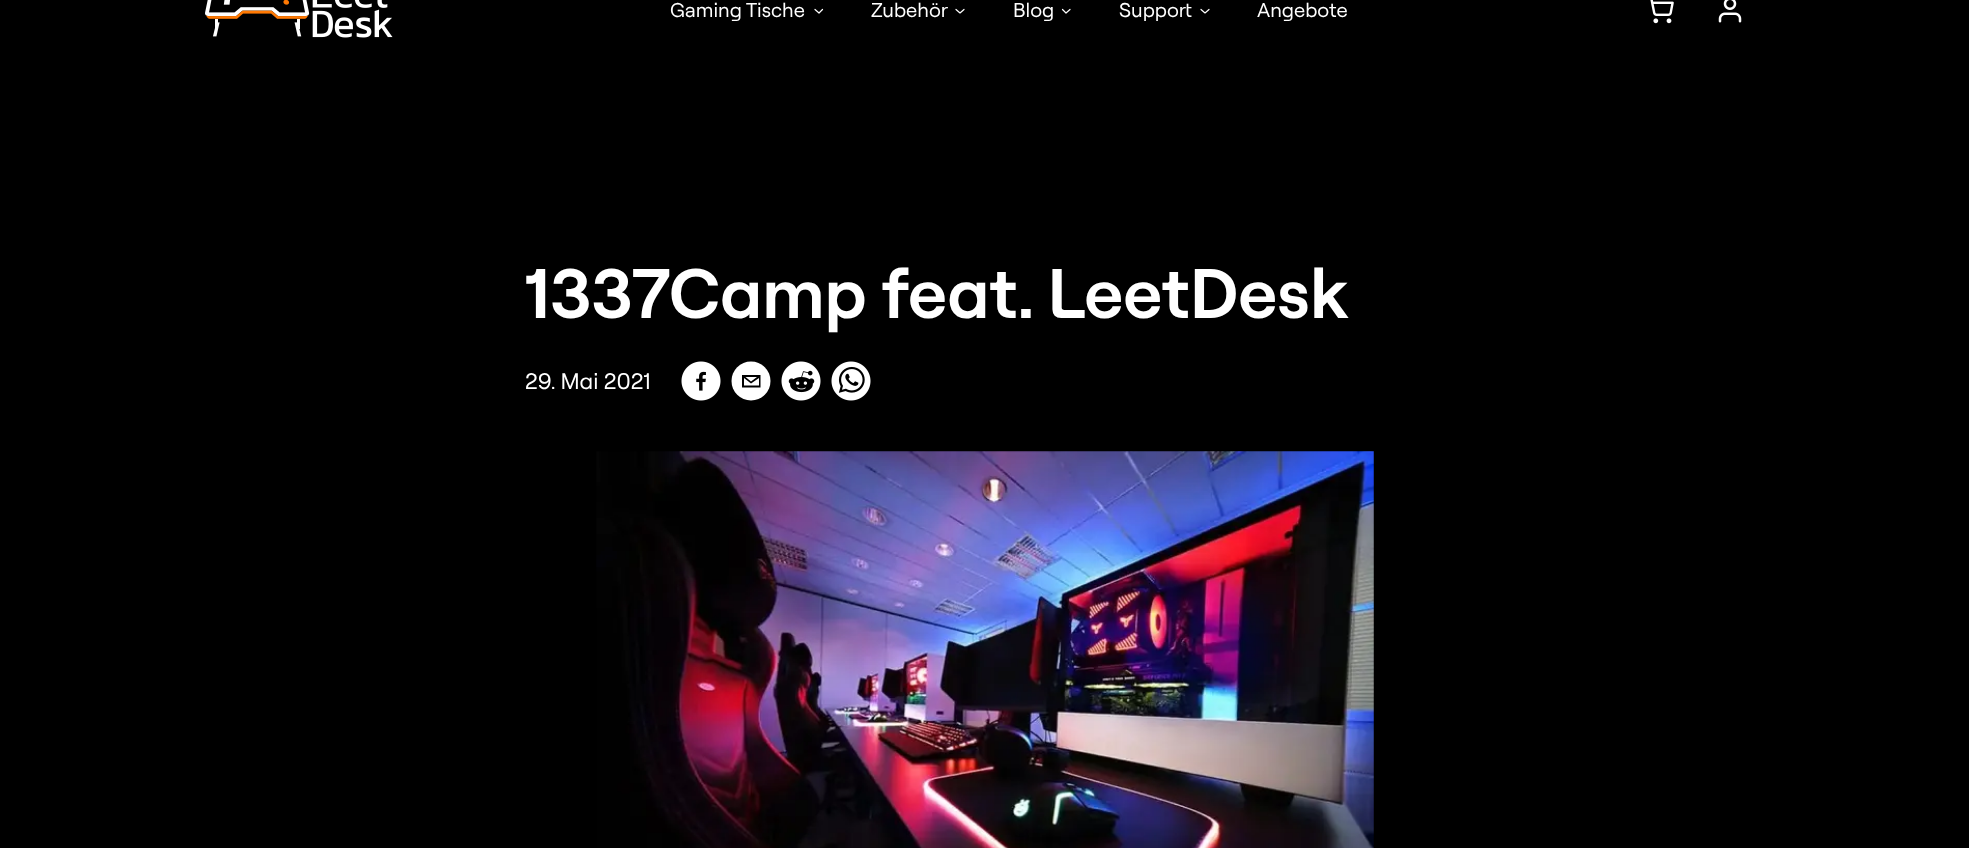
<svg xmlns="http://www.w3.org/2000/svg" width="1969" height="848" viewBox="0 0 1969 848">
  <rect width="100%" height="100%" fill="rgb(0,0,0)"/>
  <image x="205" y="0" width="188" height="38" href="pic1.png"/>
  <text x="670" y="17" font-family="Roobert" font-size="20" fill="rgb(255,255,255)">Gaming Tische</text>
  <path d="M815 9.5L819 13L822.5 9.5" fill="none" stroke="rgb(255,255,255)" stroke-width="1.2" stroke-linecap="round" stroke-linejoin="round"/>
  <text x="871" y="17" font-family="Roobert" font-size="20" fill="rgb(255,255,255)">Zubehör</text>
  <path d="M956 9.5L960 13L964 9.5" fill="none" stroke="rgb(255,255,255)" stroke-width="1.2" stroke-linecap="round" stroke-linejoin="round"/>
  <text x="1013" y="17" font-family="Roobert" font-size="20" fill="rgb(255,255,255)">Blog</text>
  <path d="M1062.5 9.5L1066 13L1070 9.5" fill="none" stroke="rgb(255,255,255)" stroke-width="1.2" stroke-linecap="round" stroke-linejoin="round"/>
  <text x="1119" y="17" font-family="Roobert" font-size="20" fill="rgb(255,255,255)">Support</text>
  <path d="M1201 9.5L1205 13L1209 9.5" fill="none" stroke="rgb(255,255,255)" stroke-width="1.2" stroke-linecap="round" stroke-linejoin="round"/>
  <text x="1257" y="17" font-family="Roobert" font-size="20" fill="rgb(255,255,255)">Angebote</text>
  <image x="1650" y="0" width="24" height="24" href="pic2.png"/>
  <image x="1718" y="0" width="24" height="23" href="pic3.png"/>
  <text x="525" y="318" font-family="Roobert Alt" font-size="70" font-weight="600" fill="rgb(255,255,255)">1337Camp feat. LeetDesk</text>
  <text x="525" y="389" font-family="Roobert Alt" font-size="22.5" fill="rgb(255,255,255)">29. Mai 2021</text>
  <image x="681" y="361" width="40" height="40" href="pic4.png"/>
  <circle cx="751" cy="381" r="19.5" fill="rgb(255,255,255)"/>
  <path d="M742 375V387.5H760.5V375ZM757 377L751 381.5L745.5 377ZM744 385.5V378L751 383.5L759 378V385.5Z" fill="rgb(0,0,0)"/>
  <image x="781" y="361" width="40" height="40" href="pic5.png"/>
  <image x="831" y="361" width="40" height="40" href="pic6.png"/>
  <image x="596" y="451" width="778" height="397" href="pic7.png"/>
</svg>
